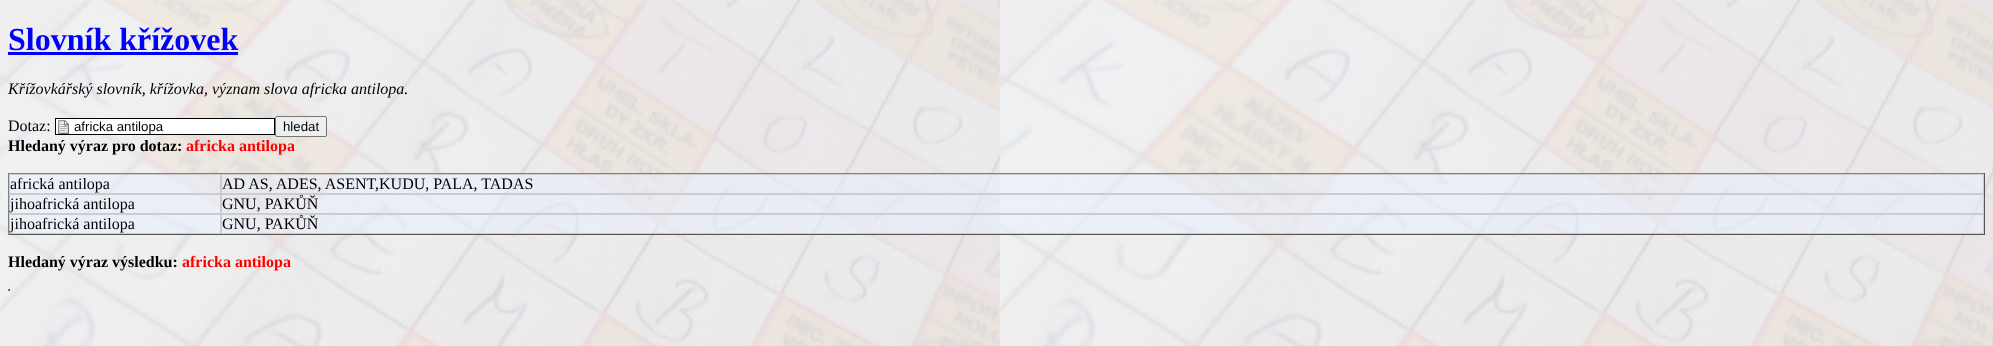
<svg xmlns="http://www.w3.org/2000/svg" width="1993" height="346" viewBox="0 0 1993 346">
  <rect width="100%" height="100%" fill="rgb(255,255,255)"/>
  <image x="0" y="0" width="1993" height="346" href="pic1.png"/>
  <text x="8" y="50" font-family="Liberation Serif" font-size="32" font-weight="bold" fill="rgb(0,0,255)">Slovník křížovek</text>
  <rect x="8" y="52" width="230" height="3" fill="rgb(0,0,255)"/>
  <text x="8" y="94" font-family="Liberation Serif" font-size="16" font-style="italic" fill="rgb(0,0,0)">Křížovkářský slovník, křížovka, význam slova africka antilopa.</text>
  <text x="8" y="131" font-family="Liberation Serif" font-size="16" fill="rgb(0,0,0)">Dotaz:</text>
  <rect x="56" y="119" width="218" height="15" fill="rgb(255,255,255)"/>
  <image x="58" y="120" width="11" height="14" href="pic2.png"/>
  <rect x="55.5" y="118.5" width="219" height="16" fill="none" stroke="rgb(0,0,0)"/>
  <text x="74" y="131" font-family="Liberation Sans" font-size="13.25" fill="rgb(0,0,0)">africka antilopa</text>
  <rect x="275.5" y="116.5" width="51" height="20" rx="1.5" fill="rgb(239,239,239)" stroke="rgb(118,118,118)"/>
  <text x="283" y="131" font-family="Liberation Sans" font-size="13.25" fill="rgb(0,0,0)">hledat</text>
  <text x="8" y="151" font-family="Liberation Serif" font-size="16" font-weight="bold" fill="rgb(0,0,0)">Hledaný výraz pro dotaz:</text>
  <text x="186" y="151" font-family="Liberation Serif" font-size="16" font-weight="bold" fill="rgb(255,0,0)">africka antilopa</text>
  <rect x="10" y="175" width="1973" height="58" fill="rgba(231,239,255,0.5)"/>
  <rect x="8" y="173" width="1977" height="1" fill="rgb(128,128,128)"/>
  <rect x="1984" y="173" width="1" height="62" fill="rgb(85,85,85)"/>
  <rect x="8" y="234" width="1977" height="1" fill="rgb(85,85,85)"/>
  <rect x="8" y="173" width="1" height="62" fill="rgb(128,128,128)"/>
  <rect x="9.5" y="174.5" width="211" height="19" fill="none" stroke="rgb(204,204,204)"/>
  <text x="10" y="189" font-family="Liberation Serif" font-size="16" fill="rgb(0,0,0)">africká antilopa</text>
  <rect x="221.5" y="174.5" width="1762" height="19" fill="none" stroke="rgb(204,204,204)"/>
  <text x="222" y="189" font-family="Liberation Serif" font-size="16" fill="rgb(0,0,0)">AD AS, ADES, ASENT,KUDU, PALA, TADAS</text>
  <rect x="9.5" y="194.5" width="211" height="19" fill="none" stroke="rgb(204,204,204)"/>
  <text x="10" y="209" font-family="Liberation Serif" font-size="16" fill="rgb(0,0,0)">jihoafrická antilopa</text>
  <rect x="221.5" y="194.5" width="1762" height="19" fill="none" stroke="rgb(204,204,204)"/>
  <text x="222" y="209" font-family="Liberation Serif" font-size="16" fill="rgb(0,0,0)">GNU, PAKŮŇ</text>
  <rect x="9.5" y="214.5" width="211" height="19" fill="none" stroke="rgb(204,204,204)"/>
  <text x="10" y="229" font-family="Liberation Serif" font-size="16" fill="rgb(0,0,0)">jihoafrická antilopa</text>
  <rect x="221.5" y="214.5" width="1762" height="19" fill="none" stroke="rgb(204,204,204)"/>
  <text x="222" y="229" font-family="Liberation Serif" font-size="16" fill="rgb(0,0,0)">GNU, PAKŮŇ</text>
  <text x="8" y="267" font-family="Liberation Serif" font-size="16" font-weight="bold" fill="rgb(0,0,0)">Hledaný výraz výsledku:</text>
  <text x="182" y="267" font-family="Liberation Serif" font-size="16" font-weight="bold" fill="rgb(255,0,0)">africka antilopa</text>
  <rect x="9" y="289" width="1" height="2" fill="rgb(85,85,85)"/>
  <rect x="8" y="290" width="2" height="1" fill="rgb(85,85,85)"/>
  <rect x="8" y="289" width="1" height="2" fill="rgb(128,128,128)"/>
</svg>
